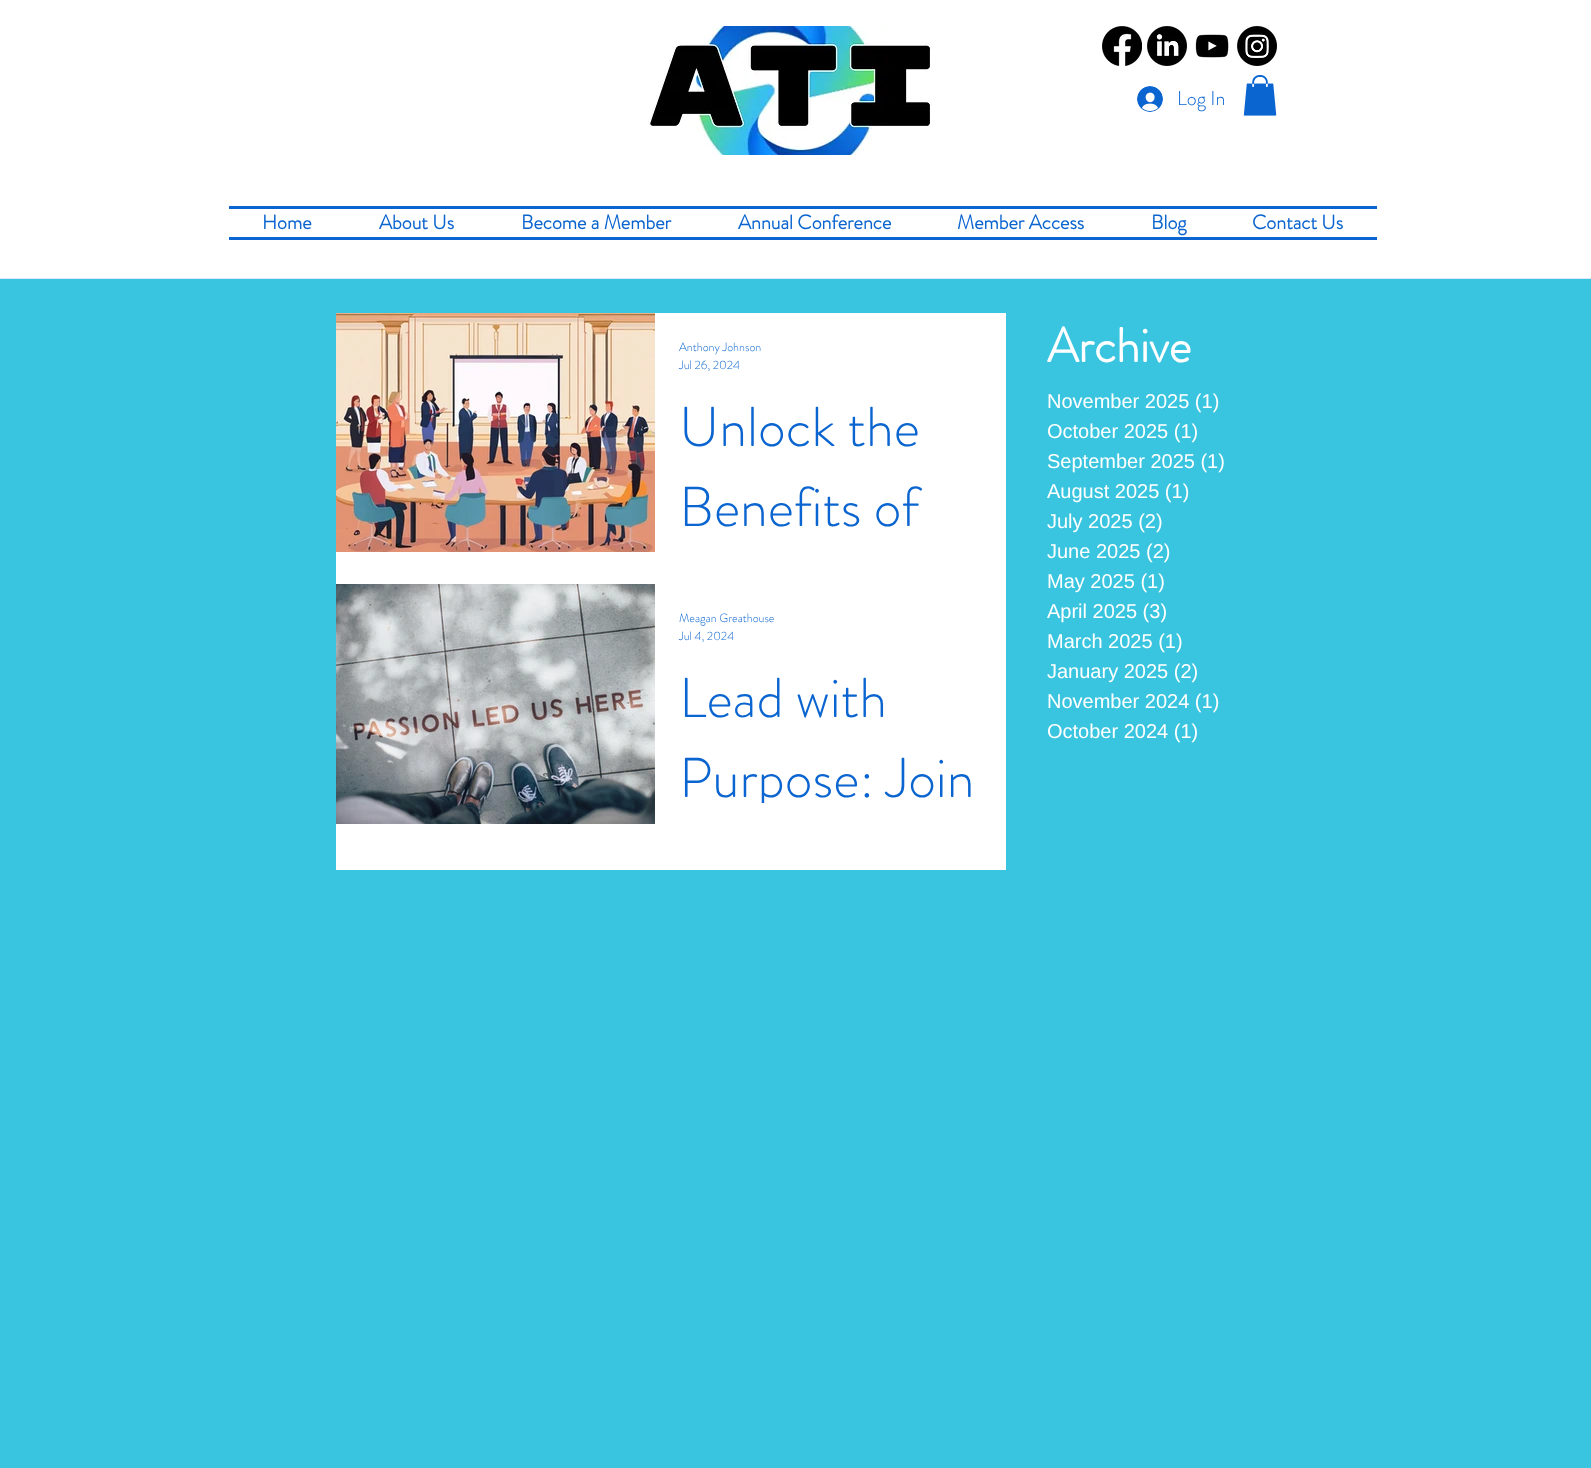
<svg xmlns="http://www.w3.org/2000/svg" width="1591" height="1468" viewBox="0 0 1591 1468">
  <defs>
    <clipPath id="clip1"><rect x="679" y="658" width="303" height="145"/></clipPath>
  </defs>
  <rect width="100%" height="100%" fill="rgb(255,255,255)"/>
  <image x="648" y="26" width="284" height="129" href="pic1.png"/>
  <image x="1102" y="26" width="40" height="40" href="pic2.png"/>
  <image x="1147" y="26" width="40" height="40" href="pic3.png"/>
  <image x="1195" y="34" width="34" height="24" href="pic4.png"/>
  <image x="1237" y="26" width="40" height="40" href="pic5.png"/>
  <image x="1137" y="86" width="26" height="26" href="pic6.png"/>
  <text x="1177" y="105" font-family="'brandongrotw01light'" font-size="20" font-weight="300" fill="rgb(11,101,208)">Log In</text>
  <image x="1243" y="75" width="34" height="41" href="pic7.png"/>
  <rect x="229" y="206" width="1148" height="3" fill="rgb(11,101,208)"/>
  <rect x="229" y="237" width="1148" height="3" fill="rgb(11,101,208)"/>
  <g font-family="'brandongrotw01light'" font-size="20" font-weight="bold" fill="rgb(11,101,208)">
    <text x="262" y="229">Home</text>
    <text x="379" y="229">About Us</text>
    <text x="521" y="229">Become a Member</text>
    <text x="738" y="229">Annual Conference</text>
    <text x="957" y="229">Member Access</text>
    <text x="1151" y="229">Blog</text>
    <text x="1252" y="229">Contact Us</text>
  </g>
  <rect x="0" y="278" width="1591" height="1" fill="rgb(218,232,248)"/>
  <rect x="0" y="279" width="1591" height="1189" fill="rgb(57,197,223)"/>
  <rect x="336" y="313" width="670" height="557" fill="rgb(255,255,255)"/>
  <image x="336" y="313" width="319" height="239" href="pic8.png"/>
  <g font-family="'brandongrotw01light'" font-size="12" font-weight="300" fill="rgb(11,101,208)">
    <text>
      <tspan x="679" y="351">Anthony Johnson</tspan>
      <tspan x="679" y="369">Jul 26, 2024</tspan>
    </text>
  </g>
  <g font-family="'brandongrotw01light'" font-size="56" font-weight="300" fill="rgb(11,101,208)">
    <text>
      <tspan x="679" y="446">Unlock the</tspan>
      <tspan x="679" y="526">Benefits of</tspan>
    </text>
  </g>
  <image x="336" y="584" width="319" height="240" href="pic9.png"/>
  <g font-family="'brandongrotw01light'" font-size="12" font-weight="300" fill="rgb(11,101,208)">
    <text>
      <tspan x="679" y="622">Meagan Greathouse</tspan>
      <tspan x="679" y="640">Jul 4, 2024</tspan>
    </text>
  </g>
  <text x="679" y="717" font-family="'brandongrotw01light'" font-size="56" font-weight="300" fill="rgb(11,101,208)">Lead with</text>
  <g clip-path="url(#clip1)">
    <text x="679" y="797" font-family="'brandongrotw01light'" font-size="56" font-weight="300" fill="rgb(11,101,208)">Purpose: Join</text>
  </g>
  <text x="1047" y="362" font-family="'brandongrotw01light'" font-size="48" font-weight="bold" fill="rgb(255,255,255)">Archive</text>
  <g font-family="Liberation Sans" font-size="20" fill="rgb(255,255,255)">
    <text>
      <tspan x="1047" y="408">November 2025 (1)</tspan>
      <tspan x="1047" y="438">October 2025 (1)</tspan>
      <tspan x="1047" y="468">September 2025 (1)</tspan>
      <tspan x="1047" y="498">August 2025 (1)</tspan>
      <tspan x="1047" y="528">July 2025 (2)</tspan>
      <tspan x="1047" y="558">June 2025 (2)</tspan>
      <tspan x="1047" y="588">May 2025 (1)</tspan>
      <tspan x="1047" y="618">April 2025 (3)</tspan>
      <tspan x="1047" y="648">March 2025 (1)</tspan>
      <tspan x="1047" y="678">January 2025 (2)</tspan>
      <tspan x="1047" y="708">November 2024 (1)</tspan>
      <tspan x="1047" y="738">October 2024 (1)</tspan>
    </text>
  </g>
</svg>
